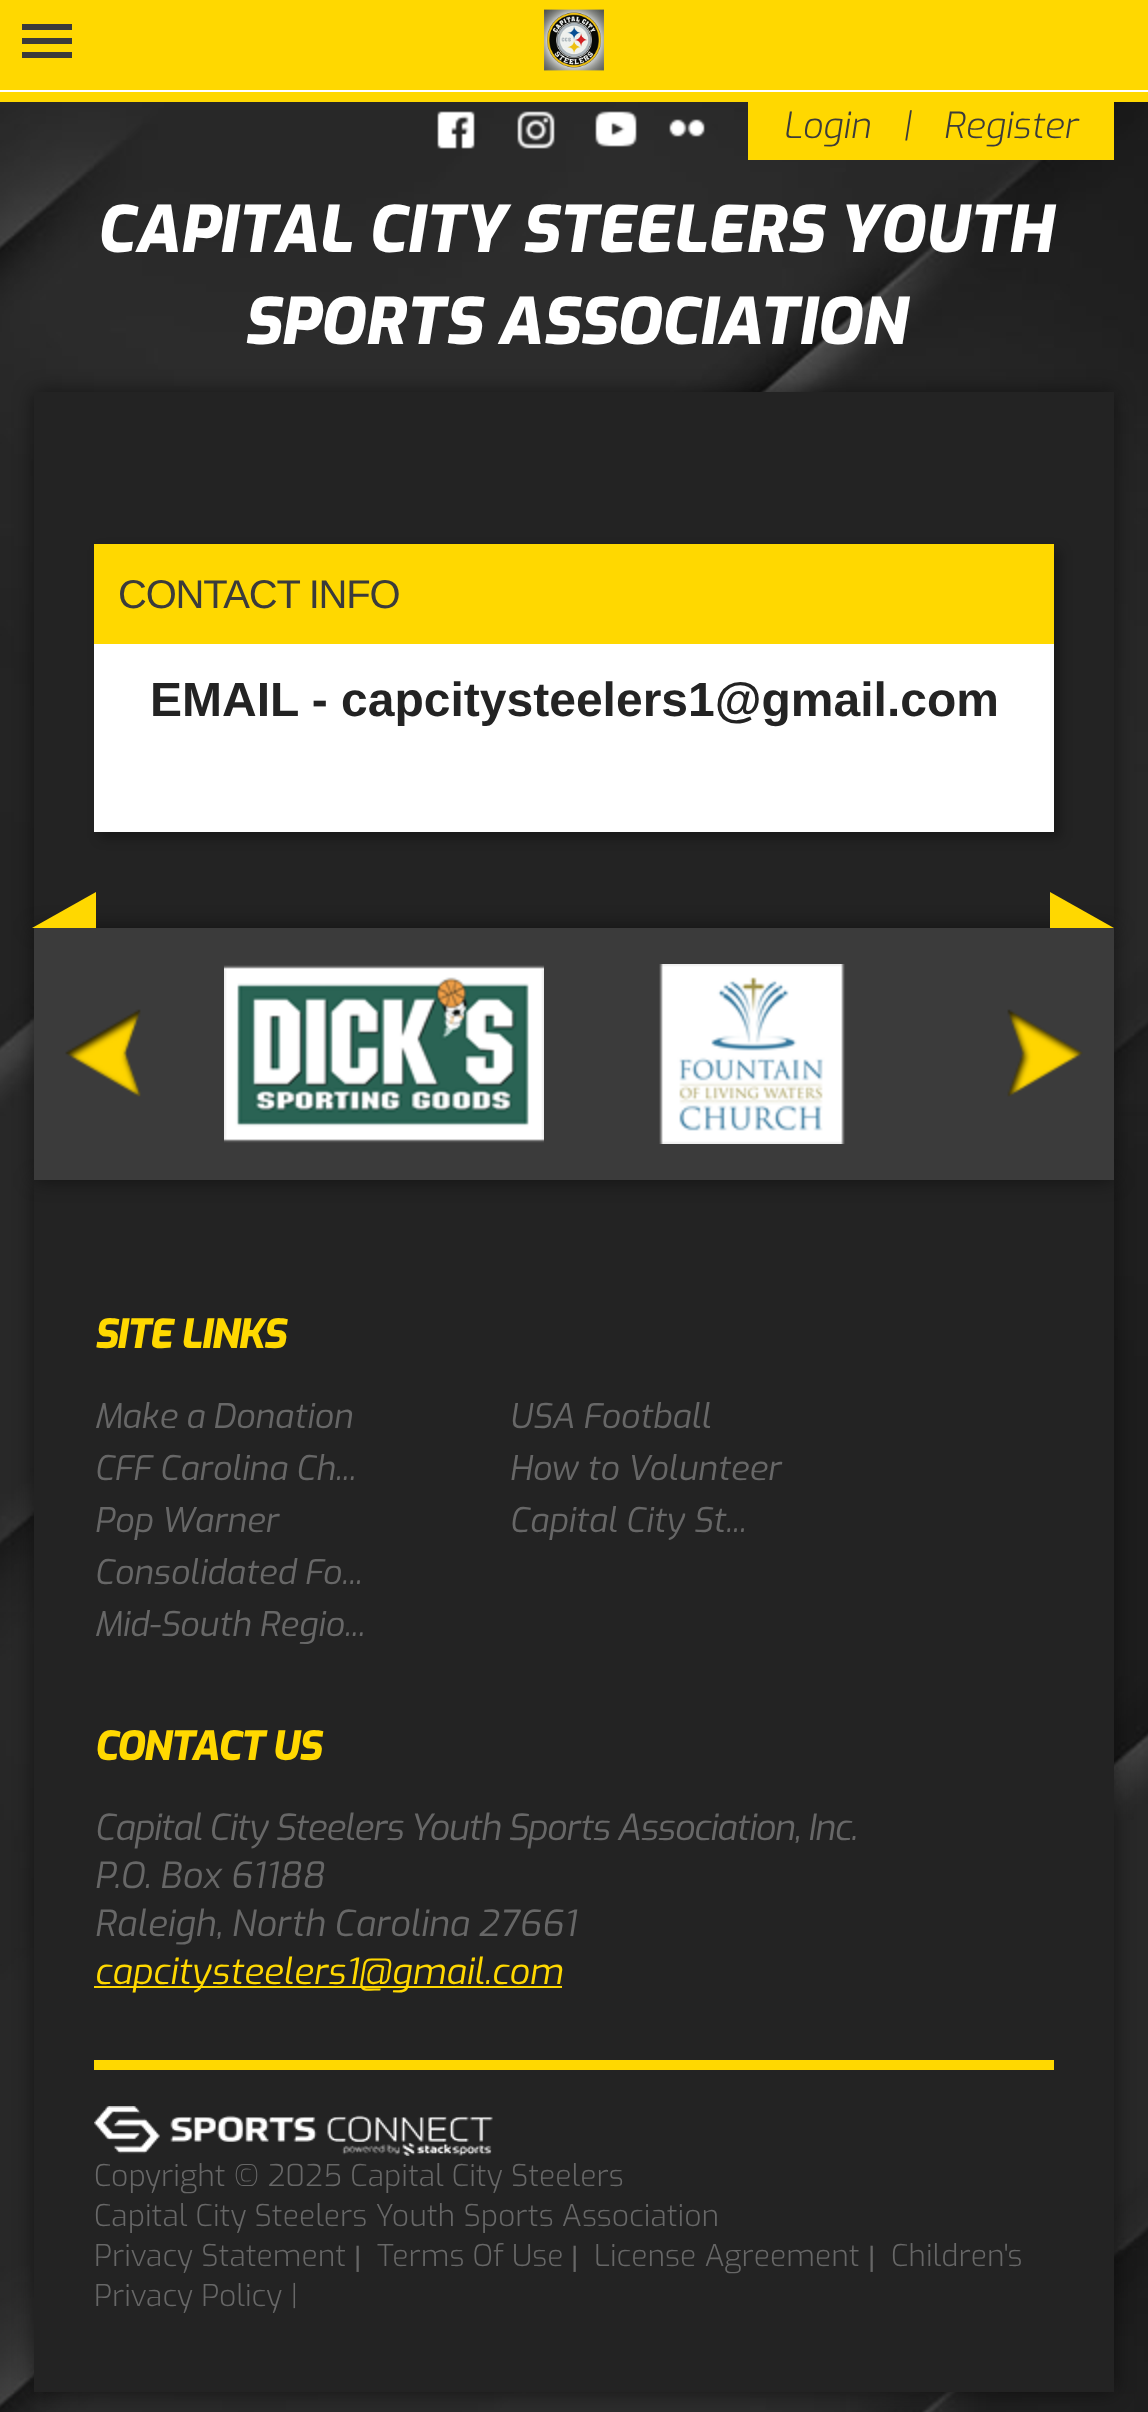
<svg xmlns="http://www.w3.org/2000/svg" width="1148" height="2412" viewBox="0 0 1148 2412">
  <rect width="100%" height="100%" fill="rgb(255,255,255)"/>
  <rect x="0" y="0" width="1148" height="90" fill="rgb(255,216,0)"/>
  <path d="M22 24H72V30H22ZM22 38H72V44H22ZM22 52H72V58H22Z" fill="rgb(59,59,59)"/>
  <image x="544" y="9" width="60" height="62" href="pic1.png"/>
  <image x="0" y="102" width="1148" height="2310" href="pic2.png"/>
  <rect x="0" y="92" width="1148" height="10" fill="rgb(255,216,0)"/>
  <image x="437" y="111" width="38" height="38" href="pic3.png"/>
  <image x="517" y="111" width="38" height="38" href="pic4.png"/>
  <image x="595" y="111" width="42" height="36" href="pic5.png"/>
  <image x="669" y="119" width="36" height="18" href="pic6.png"/>
  <rect x="748" y="102" width="366" height="58" fill="rgb(255,216,0)"/>
  <g font-family="Exo" font-size="36" font-weight="300" font-style="italic" fill="rgb(59,59,59)">
    <text x="783" y="138">Login</text>
    <text x="902" y="138">|</text>
    <text x="943" y="138">Register</text>
  </g>
  <g font-family="Exo" font-size="64" font-weight="800" font-style="italic" fill="rgb(255,255,255)">
    <text x="96" y="252">CAPITAL CITY STEELERS YOUTH</text>
    <text x="243" y="344">SPORTS ASSOCIATION</text>
  </g>
  <rect x="34" y="392" width="1080" height="536" fill="rgba(0,0,0,0.5)" filter="blur(10px)"/>
  <rect x="34" y="392" width="1080" height="536" fill="rgb(35,35,35)"/>
  <rect x="100" y="550" width="960" height="288" fill="rgba(0,0,0,0.3)" filter="blur(6px)"/>
  <rect x="94" y="544" width="960" height="100" fill="rgb(255,216,0)"/>
  <text x="118" y="608" font-family="Liberation Sans" font-size="40" letter-spacing="-1.25" fill="rgb(59,59,59)">CONTACT INFO</text>
  <rect x="94" y="644" width="960" height="188" fill="rgb(255,255,255)"/>
  <text x="150" y="716" font-family="Liberation Sans" font-size="48" font-weight="bold" fill="rgb(35,35,35)">EMAIL - capcitysteelers1@gmail.com</text>
  <rect x="34" y="1180" width="1080" height="1212" fill="rgba(0,0,0,0.5)" filter="blur(10px)"/>
  <rect x="34" y="1180" width="1080" height="1212" fill="rgb(35,35,35)"/>
  <rect x="34" y="928" width="1080" height="252" fill="rgba(0,0,0,0.5)" filter="blur(10px)"/>
  <rect x="34" y="928" width="1080" height="252" fill="rgb(59,59,59)"/>
  <path d="M96 928H32L96 892Z" fill="rgb(255,216,0)"/>
  <path d="M1114 928H1050V892Z" fill="rgb(255,216,0)"/>
  <image x="65" y="1009" width="76" height="88" href="pic7.png"/>
  <image x="224" y="965" width="320" height="178" href="pic8.png"/>
  <image x="659" y="964" width="186" height="180" href="pic9.png"/>
  <image x="1007" y="1009" width="76" height="88" href="pic10.png"/>
  <text x="94" y="1348" font-family="Exo" font-size="40" font-weight="800" font-style="italic" letter-spacing="-1.25" fill="rgb(255,216,0)">SITE LINKS</text>
  <g font-family="Exo" font-size="34" font-style="italic" fill="rgb(103,103,103)">
    <text>
      <tspan x="94" y="1428">Make a Donation</tspan>
      <tspan x="94" y="1480">CFF Carolina Ch...</tspan>
      <tspan x="94" y="1532">Pop Warner</tspan>
      <tspan x="94" y="1584">Consolidated Fo...</tspan>
      <tspan x="94" y="1636">Mid-South Regio...</tspan>
    </text>
    <text>
      <tspan x="509" y="1428">USA Football</tspan>
      <tspan x="509" y="1480">How to Volunteer</tspan>
      <tspan x="509" y="1532">Capital City St...</tspan>
    </text>
  </g>
  <text x="94" y="1760" font-family="Exo" font-size="40" font-weight="800" font-style="italic" letter-spacing="-1.25" fill="rgb(255,216,0)">CONTACT US</text>
  <text x="94" y="1840" font-family="Exo" font-size="36" font-style="italic" letter-spacing="-1.08" fill="rgb(103,103,103)">Capital City Steelers Youth Sports Association, Inc.</text>
  <g font-family="Exo" font-size="36" font-style="italic" fill="rgb(103,103,103)">
    <text>
      <tspan x="94" y="1888">P.O. Box 61188</tspan>
      <tspan x="94" y="1936">Raleigh, North Carolina 27661</tspan>
    </text>
  </g>
  <rect x="94" y="1986" width="468" height="2" fill="rgb(255,216,0)"/>
  <text x="94" y="1984" font-family="Exo" font-size="36" font-style="italic" fill="rgb(255,216,0)">capcitysteelers1@gmail.com</text>
  <rect x="94" y="2060" width="960" height="10" fill="rgb(255,216,0)"/>
  <image x="94" y="2106" width="399" height="50" href="pic11.png"/>
  <g font-family="Exo" font-size="30" font-weight="300" fill="rgb(103,103,103)">
    <text>
      <tspan x="94" y="2186">Copyright © 2025 Capital City Steelers</tspan>
      <tspan x="94" y="2226">Capital City Steelers Youth Sports Association</tspan>
      <tspan x="94" y="2266">Privacy Statement</tspan>
    </text>
  </g>
  <text x="354" y="2266" font-family="Liberation Sans" font-size="28" fill="rgb(103,103,103)">|</text>
  <text x="377" y="2266" font-family="Exo" font-size="30" font-weight="300" fill="rgb(103,103,103)">Terms Of Use</text>
  <text x="571" y="2266" font-family="Liberation Sans" font-size="28" fill="rgb(103,103,103)">|</text>
  <text x="594" y="2266" font-family="Exo" font-size="30" font-weight="300" fill="rgb(103,103,103)">License Agreement</text>
  <text x="868" y="2266" font-family="Liberation Sans" font-size="28" fill="rgb(103,103,103)">|</text>
  <g font-family="Exo" font-size="30" font-weight="300" fill="rgb(103,103,103)">
    <text x="891" y="2266">Children's</text>
    <text x="94" y="2306">Privacy Policy |</text>
  </g>
</svg>
